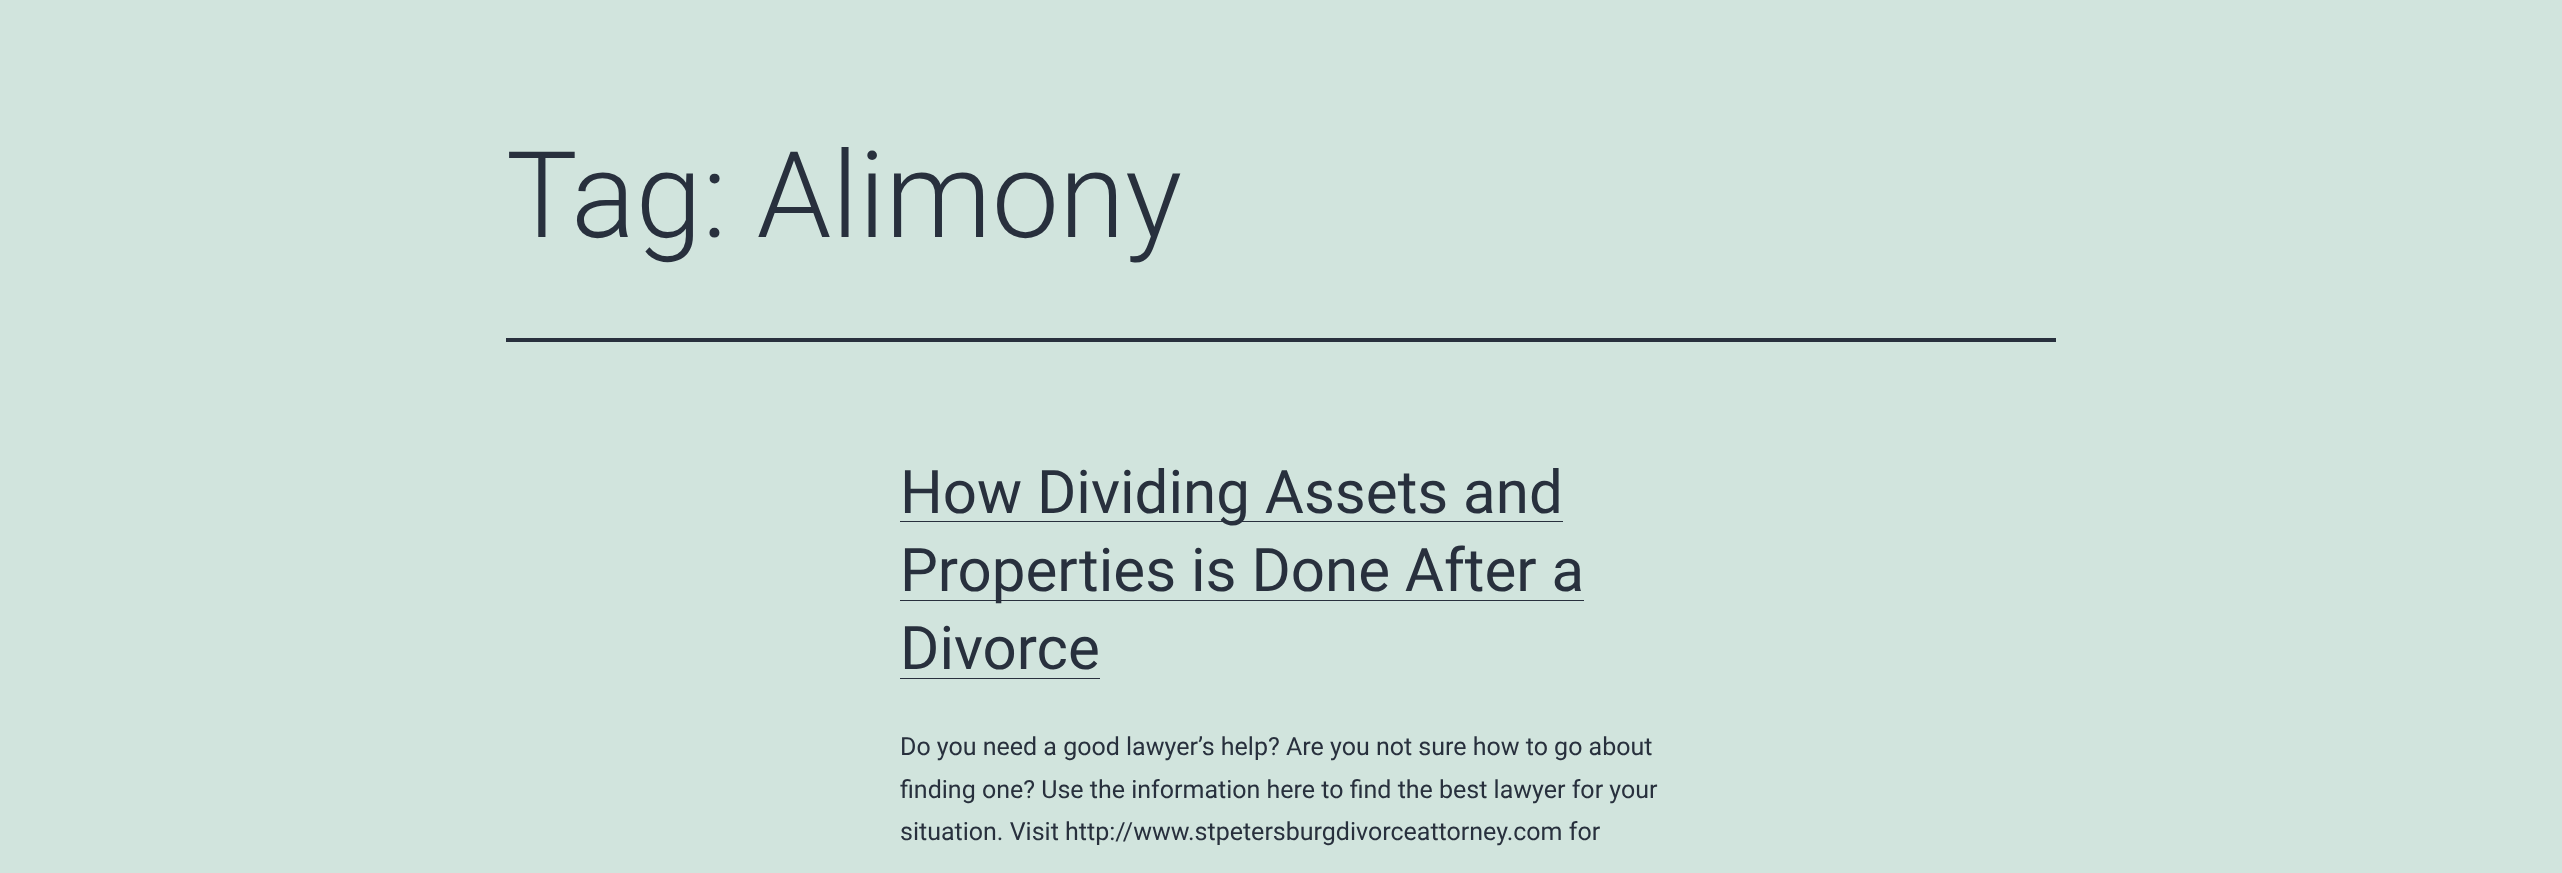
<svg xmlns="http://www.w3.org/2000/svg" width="2562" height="873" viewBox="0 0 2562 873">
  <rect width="100%" height="100%" fill="rgb(209,228,221)"/>
  <rect x="506" y="338" width="1550" height="4" fill="rgb(40,48,61)"/>
  <text x="506" y="237" font-family="Roboto" font-size="120" font-weight="300" fill="rgb(40,48,61)">Tag: Alimony</text>
  <rect x="900" y="521" width="663" height="1" fill="rgb(40,48,61)"/>
  <text x="900" y="513" font-family="Roboto" font-size="60" fill="rgb(40,48,61)">How Dividing Assets and</text>
  <rect x="900" y="600" width="684" height="1" fill="rgb(40,48,61)"/>
  <g font-family="Roboto" font-size="60" fill="rgb(40,48,61)">
    <text>
      <tspan x="900" y="591">Properties is Done After a</tspan>
      <tspan x="900" y="669">Divorce</tspan>
    </text>
  </g>
  <rect x="900" y="678" width="200" height="1" fill="rgb(40,48,61)"/>
  <g font-family="Roboto" font-size="25" fill="rgb(40,48,61)">
    <text>
      <tspan x="900" y="755">Do you need a good lawyer’s help? Are you not sure how to go about</tspan>
      <tspan x="900" y="798">finding one? Use the information here to find the best lawyer for your</tspan>
      <tspan x="900" y="840">situation. Visit http://www.stpetersburgdivorceattorney.com for</tspan>
    </text>
  </g>
</svg>
